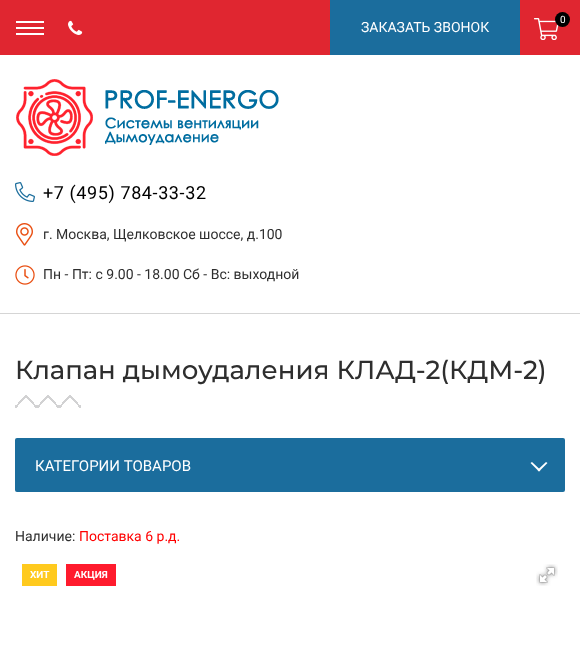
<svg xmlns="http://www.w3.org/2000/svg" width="580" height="668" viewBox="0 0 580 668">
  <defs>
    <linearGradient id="g1" gradientUnits="userSpaceOnUse" x1="17" y1="410" x2="35" y2="393"><stop offset="0.61" stop-color="rgb(255,255,255)"/><stop offset="0.61" stop-color="rgb(210,210,211)"/></linearGradient>
    <linearGradient id="g2" gradientUnits="userSpaceOnUse" x1="39" y1="410" x2="57" y2="393"><stop offset="0.61" stop-color="rgb(255,255,255)"/><stop offset="0.61" stop-color="rgb(210,210,211)"/></linearGradient>
    <linearGradient id="g3" gradientUnits="userSpaceOnUse" x1="61" y1="410" x2="79" y2="393"><stop offset="0.61" stop-color="rgb(255,255,255)"/><stop offset="0.61" stop-color="rgb(210,210,211)"/></linearGradient>
    <linearGradient id="g4" gradientUnits="userSpaceOnUse" x1="35" y1="410" x2="17" y2="393"><stop offset="0.61" stop-color="rgb(210,210,211)" stop-opacity="0"/><stop offset="0.61" stop-color="rgb(210,210,211)"/></linearGradient>
    <linearGradient id="g5" gradientUnits="userSpaceOnUse" x1="57" y1="410" x2="39" y2="393"><stop offset="0.61" stop-color="rgb(210,210,211)" stop-opacity="0"/><stop offset="0.61" stop-color="rgb(210,210,211)"/></linearGradient>
    <linearGradient id="g6" gradientUnits="userSpaceOnUse" x1="79" y1="410" x2="61" y2="393"><stop offset="0.61" stop-color="rgb(210,210,211)" stop-opacity="0"/><stop offset="0.61" stop-color="rgb(210,210,211)"/></linearGradient>
    <linearGradient id="g7" gradientUnits="userSpaceOnUse" x1="17" y1="407" x2="35" y2="390"><stop offset="0.61" stop-color="rgb(255,255,255)" stop-opacity="0"/><stop offset="0.61" stop-color="rgb(255,255,255)"/></linearGradient>
    <linearGradient id="g8" gradientUnits="userSpaceOnUse" x1="39" y1="407" x2="57" y2="390"><stop offset="0.61" stop-color="rgb(255,255,255)" stop-opacity="0"/><stop offset="0.61" stop-color="rgb(255,255,255)"/></linearGradient>
    <linearGradient id="g9" gradientUnits="userSpaceOnUse" x1="61" y1="407" x2="79" y2="390"><stop offset="0.61" stop-color="rgb(255,255,255)" stop-opacity="0"/><stop offset="0.61" stop-color="rgb(255,255,255)"/></linearGradient>
    <linearGradient id="g10" gradientUnits="userSpaceOnUse" x1="35" y1="407" x2="17" y2="390"><stop offset="0.61" stop-color="rgb(255,255,255)" stop-opacity="0"/><stop offset="0.61" stop-color="rgb(255,255,255)"/></linearGradient>
    <linearGradient id="g11" gradientUnits="userSpaceOnUse" x1="57" y1="407" x2="39" y2="390"><stop offset="0.61" stop-color="rgb(255,255,255)" stop-opacity="0"/><stop offset="0.61" stop-color="rgb(255,255,255)"/></linearGradient>
    <linearGradient id="g12" gradientUnits="userSpaceOnUse" x1="79" y1="407" x2="61" y2="390"><stop offset="0.61" stop-color="rgb(255,255,255)" stop-opacity="0"/><stop offset="0.61" stop-color="rgb(255,255,255)"/></linearGradient>
  </defs>
  <rect width="100%" height="100%" fill="rgb(255,255,255)"/>
  <rect x="0" y="313" width="580" height="1" fill="rgb(213,213,213)"/>
  <rect x="0" y="0" width="580" height="55" fill="rgb(224,38,48)"/>
  <rect x="16" y="21" width="28" height="2" fill="rgb(255,255,255)"/>
  <rect x="16" y="27" width="28" height="2" fill="rgb(255,255,255)"/>
  <rect x="16" y="33" width="28" height="2" fill="rgb(255,255,255)"/>
  <image x="68" y="20" width="15" height="15" href="pic1.png"/>
  <rect x="330" y="0" width="190" height="55" fill="rgb(27,109,157)"/>
  <text x="361" y="32" font-family="Roboto" font-size="14" fill="rgb(255,255,255)">ЗАКАЗАТЬ ЗВОНОК</text>
  <image x="534" y="18" width="25" height="22" href="pic2.png"/>
  <circle cx="562.5" cy="19.5" r="7.5" fill="rgb(0,0,0)"/>
  <text x="560" y="23" font-family="Roboto" font-size="10" fill="rgb(255,255,255)">0</text>
  <image x="16" y="79" width="263" height="77" href="pic3.png"/>
  <image x="15" y="182" width="20" height="20" href="pic4.png"/>
  <text x="43" y="199" font-family="Roboto" font-size="18" letter-spacing="0.6" fill="rgb(0,0,0)">+7 (495) 784-33-32</text>
  <image x="16" y="223" width="17" height="23" href="pic5.png"/>
  <text x="43" y="239" font-family="Roboto" font-size="14" fill="rgb(46,46,46)">г. Москва, Щелковское шоссе, д.100</text>
  <image x="15" y="265" width="20" height="20" href="pic6.png"/>
  <text x="43" y="279" font-family="Roboto" font-size="14" fill="rgb(46,46,46)">Пн - Пт: c 9.00 - 18.00 Сб - Вс: выходной</text>
  <text x="15" y="379" font-family="Montserrat" font-size="26" font-weight="500" fill="rgb(46,46,46)">Клапан дымоудаления КЛАД-2(КДМ-2)</text>
  <rect x="25" y="396" width="12" height="12" fill="url(#g1)"/>
  <rect x="47" y="396" width="12" height="12" fill="url(#g2)"/>
  <rect x="69" y="396" width="12" height="12" fill="url(#g3)"/>
  <rect x="15" y="395" width="12" height="13" fill="url(#g4)"/>
  <rect x="37" y="395" width="12" height="13" fill="url(#g5)"/>
  <rect x="59" y="395" width="12" height="13" fill="url(#g6)"/>
  <rect x="28" y="396" width="9" height="9" fill="url(#g7)"/>
  <rect x="50" y="396" width="9" height="9" fill="url(#g8)"/>
  <rect x="72" y="396" width="9" height="9" fill="url(#g9)"/>
  <rect x="15" y="395" width="10" height="10" fill="url(#g10)"/>
  <rect x="37" y="395" width="10" height="10" fill="url(#g11)"/>
  <rect x="59" y="395" width="10" height="10" fill="url(#g12)"/>
  <rect x="15" y="438" width="550" height="54" rx="2" fill="rgb(27,109,157)"/>
  <text x="35" y="471" font-family="Roboto" font-size="15" fill="rgb(255,255,255)">КАТЕГОРИИ ТОВАРОВ</text>
  <path d="M546 462L547.5 463L539 471.5L537.5 470Z" fill="rgb(255,255,255)"/>
  <path d="M532 462L540.5 470L539 471.5L530.5 463Z" fill="rgb(255,255,255)"/>
  <text x="15" y="541" font-family="Roboto" font-size="14" fill="rgb(46,46,46)">Наличие:</text>
  <text x="79" y="541" font-family="Roboto" font-size="14" fill="rgb(255,0,0)">Поставка 6 р.д.</text>
  <rect x="22" y="564" width="35" height="22" fill="rgb(255,202,30)"/>
  <text x="30" y="578" font-family="Roboto" font-size="10" font-weight="bold" fill="rgb(255,255,255)">ХИТ</text>
  <rect x="66" y="564" width="50" height="22" fill="rgb(255,27,45)"/>
  <text x="74" y="578" font-family="Roboto" font-size="10" font-weight="bold" fill="rgb(255,255,255)">АКЦИЯ</text>
  <image x="536" y="564" width="22" height="22" href="pic7.png"/>
</svg>
